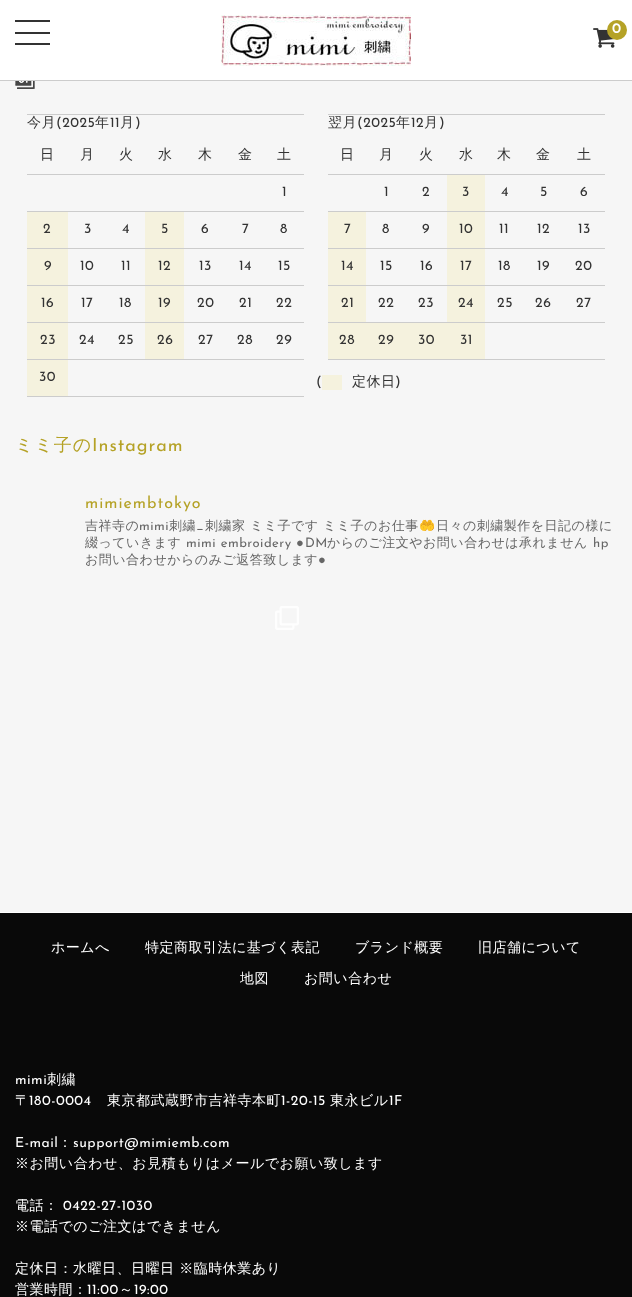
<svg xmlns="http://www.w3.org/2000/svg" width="632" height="1297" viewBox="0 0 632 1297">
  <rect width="100%" height="100%" fill="rgb(246,246,246)"/>
  <rect x="0" y="0" width="632" height="80" fill="rgb(255,255,255)"/>
  <rect x="0" y="80" width="632" height="1" fill="rgb(204,204,204)"/>
  <image x="221" y="15" width="190" height="51" href="pic1.png"/>
  <rect x="15" y="20" width="35" height="2" fill="rgb(51,51,51)"/>
  <rect x="15" y="32" width="35" height="2" fill="rgb(51,51,51)"/>
  <rect x="15" y="43" width="35" height="2" fill="rgb(51,51,51)"/>
  <image x="593" y="28" width="22" height="20" href="pic2.png"/>
  <circle cx="617" cy="30" r="10" fill="rgb(181,162,38)"/>
  <text x="612" y="33" font-family="Josefin Sans" font-size="14" font-weight="bold" letter-spacing="0.5" fill="rgb(255,255,255)">0</text>
  <image x="15" y="81" width="20" height="8" href="pic3.png"/>
  <rect x="27" y="114" width="277" height="1" fill="rgb(204,204,204)"/>
  <text x="27" y="127" font-family="WenQuanYi Zen Hei" font-size="14" font-weight="500" letter-spacing="0.5" fill="rgb(51,51,51)">今月</text>
  <text x="56" y="127" font-family="Josefin Sans" font-size="14" font-weight="100" letter-spacing="0.5" fill="rgb(51,51,51)">(2025</text>
  <text x="95" y="127" font-family="WenQuanYi Zen Hei" font-size="14" font-weight="500" letter-spacing="0.5" fill="rgb(51,51,51)">年</text>
  <text x="110" y="127" font-family="Josefin Sans" font-size="14" font-weight="100" letter-spacing="0.5" fill="rgb(51,51,51)">11</text>
  <text x="120" y="127" font-family="WenQuanYi Zen Hei" font-size="14" font-weight="500" letter-spacing="0.5" fill="rgb(51,51,51)">月</text>
  <text x="135" y="127" font-family="Josefin Sans" font-size="14" font-weight="100" letter-spacing="0.5" fill="rgb(51,51,51)">)</text>
  <rect x="27" y="174" width="277" height="1" fill="rgb(204,204,204)"/>
  <g font-family="WenQuanYi Zen Hei" font-size="14" font-weight="500" letter-spacing="0.5" fill="rgb(51,51,51)">
    <text x="40" y="159">日</text>
    <text x="80" y="159">月</text>
    <text x="119" y="159">火</text>
    <text x="158" y="159">水</text>
    <text x="198" y="159">木</text>
    <text x="238" y="159">金</text>
    <text x="277" y="159">土</text>
  </g>
  <text x="282" y="196" font-family="Josefin Sans" font-size="14" font-weight="100" letter-spacing="0.5" fill="rgb(51,51,51)">1</text>
  <rect x="27" y="211" width="277" height="1" fill="rgb(204,204,204)"/>
  <rect x="27" y="212" width="41" height="36" fill="rgb(245,242,222)"/>
  <rect x="27" y="248" width="277" height="1" fill="rgb(204,204,204)"/>
  <g font-family="Josefin Sans" font-size="14" font-weight="100" letter-spacing="0.5" fill="rgb(51,51,51)">
    <text x="43" y="233">2</text>
    <text x="84" y="233">3</text>
    <text x="122" y="233">4</text>
  </g>
  <rect x="145" y="212" width="39" height="36" fill="rgb(245,242,222)"/>
  <g font-family="Josefin Sans" font-size="14" font-weight="100" letter-spacing="0.5" fill="rgb(51,51,51)">
    <text x="161" y="233">5</text>
    <text x="201" y="233">6</text>
    <text x="242" y="233">7</text>
    <text x="280" y="233">8</text>
  </g>
  <rect x="27" y="249" width="41" height="36" fill="rgb(245,242,222)"/>
  <rect x="27" y="285" width="277" height="1" fill="rgb(204,204,204)"/>
  <g font-family="Josefin Sans" font-size="14" font-weight="100" letter-spacing="0.5" fill="rgb(51,51,51)">
    <text x="44" y="270">9</text>
    <text x="80" y="270">10</text>
    <text x="121" y="270">11</text>
  </g>
  <rect x="145" y="249" width="39" height="36" fill="rgb(245,242,222)"/>
  <g font-family="Josefin Sans" font-size="14" font-weight="100" letter-spacing="0.5" fill="rgb(51,51,51)">
    <text x="158" y="270">12</text>
    <text x="199" y="270">13</text>
    <text x="239" y="270">14</text>
    <text x="278" y="270">15</text>
  </g>
  <rect x="27" y="286" width="41" height="36" fill="rgb(245,242,222)"/>
  <rect x="27" y="322" width="277" height="1" fill="rgb(204,204,204)"/>
  <g font-family="Josefin Sans" font-size="14" font-weight="100" letter-spacing="0.5" fill="rgb(51,51,51)">
    <text x="41" y="307">16</text>
    <text x="81" y="307">17</text>
    <text x="119" y="307">18</text>
  </g>
  <rect x="145" y="286" width="39" height="36" fill="rgb(245,242,222)"/>
  <g font-family="Josefin Sans" font-size="14" font-weight="100" letter-spacing="0.5" fill="rgb(51,51,51)">
    <text x="158" y="307">19</text>
    <text x="197" y="307">20</text>
    <text x="239" y="307">21</text>
    <text x="276" y="307">22</text>
  </g>
  <rect x="27" y="323" width="41" height="36" fill="rgb(245,242,222)"/>
  <rect x="27" y="359" width="277" height="1" fill="rgb(204,204,204)"/>
  <g font-family="Josefin Sans" font-size="14" font-weight="100" letter-spacing="0.5" fill="rgb(51,51,51)">
    <text x="40" y="344">23</text>
    <text x="79" y="344">24</text>
    <text x="118" y="344">25</text>
  </g>
  <rect x="145" y="323" width="39" height="36" fill="rgb(245,242,222)"/>
  <g font-family="Josefin Sans" font-size="14" font-weight="100" letter-spacing="0.5" fill="rgb(51,51,51)">
    <text x="157" y="344">26</text>
    <text x="198" y="344">27</text>
    <text x="237" y="344">28</text>
    <text x="276" y="344">29</text>
  </g>
  <rect x="27" y="360" width="41" height="36" fill="rgb(245,242,222)"/>
  <rect x="27" y="396" width="277" height="1" fill="rgb(204,204,204)"/>
  <text x="39" y="381" font-family="Josefin Sans" font-size="14" font-weight="100" letter-spacing="0.5" fill="rgb(51,51,51)">30</text>
  <rect x="328" y="114" width="277" height="1" fill="rgb(204,204,204)"/>
  <text x="328" y="127" font-family="WenQuanYi Zen Hei" font-size="14" font-weight="500" letter-spacing="0.5" fill="rgb(51,51,51)">翌月</text>
  <text x="357" y="127" font-family="Josefin Sans" font-size="14" font-weight="100" letter-spacing="0.5" fill="rgb(51,51,51)">(2025</text>
  <text x="396" y="127" font-family="WenQuanYi Zen Hei" font-size="14" font-weight="500" letter-spacing="0.5" fill="rgb(51,51,51)">年</text>
  <text x="411" y="127" font-family="Josefin Sans" font-size="14" font-weight="100" letter-spacing="0.5" fill="rgb(51,51,51)">12</text>
  <text x="424" y="127" font-family="WenQuanYi Zen Hei" font-size="14" font-weight="500" letter-spacing="0.5" fill="rgb(51,51,51)">月</text>
  <text x="439" y="127" font-family="Josefin Sans" font-size="14" font-weight="100" letter-spacing="0.5" fill="rgb(51,51,51)">)</text>
  <rect x="328" y="174" width="277" height="1" fill="rgb(204,204,204)"/>
  <g font-family="WenQuanYi Zen Hei" font-size="14" font-weight="500" letter-spacing="0.5" fill="rgb(51,51,51)">
    <text x="340" y="159">日</text>
    <text x="379" y="159">月</text>
    <text x="419" y="159">火</text>
    <text x="459" y="159">水</text>
    <text x="497" y="159">木</text>
    <text x="536" y="159">金</text>
    <text x="577" y="159">土</text>
  </g>
  <g font-family="Josefin Sans" font-size="14" font-weight="100" letter-spacing="0.5" fill="rgb(51,51,51)">
    <text x="384" y="196">1</text>
    <text x="422" y="196">2</text>
  </g>
  <rect x="447" y="175" width="38" height="36" fill="rgb(245,242,222)"/>
  <g font-family="Josefin Sans" font-size="14" font-weight="100" letter-spacing="0.5" fill="rgb(51,51,51)">
    <text x="462" y="196">3</text>
    <text x="501" y="196">4</text>
    <text x="540" y="196">5</text>
    <text x="580" y="196">6</text>
  </g>
  <rect x="328" y="211" width="277" height="1" fill="rgb(204,204,204)"/>
  <rect x="328" y="212" width="38" height="36" fill="rgb(245,242,222)"/>
  <rect x="328" y="248" width="277" height="1" fill="rgb(204,204,204)"/>
  <g font-family="Josefin Sans" font-size="14" font-weight="100" letter-spacing="0.5" fill="rgb(51,51,51)">
    <text x="344" y="233">7</text>
    <text x="382" y="233">8</text>
    <text x="422" y="233">9</text>
  </g>
  <rect x="447" y="212" width="38" height="36" fill="rgb(245,242,222)"/>
  <g font-family="Josefin Sans" font-size="14" font-weight="100" letter-spacing="0.5" fill="rgb(51,51,51)">
    <text x="459" y="233">10</text>
    <text x="499" y="233">11</text>
    <text x="537" y="233">12</text>
    <text x="578" y="233">13</text>
  </g>
  <rect x="328" y="249" width="38" height="36" fill="rgb(245,242,222)"/>
  <rect x="328" y="285" width="277" height="1" fill="rgb(204,204,204)"/>
  <g font-family="Josefin Sans" font-size="14" font-weight="100" letter-spacing="0.5" fill="rgb(51,51,51)">
    <text x="341" y="270">14</text>
    <text x="380" y="270">15</text>
    <text x="420" y="270">16</text>
  </g>
  <rect x="447" y="249" width="38" height="36" fill="rgb(245,242,222)"/>
  <g font-family="Josefin Sans" font-size="14" font-weight="100" letter-spacing="0.5" fill="rgb(51,51,51)">
    <text x="460" y="270">17</text>
    <text x="498" y="270">18</text>
    <text x="537" y="270">19</text>
    <text x="575" y="270">20</text>
  </g>
  <rect x="328" y="286" width="38" height="36" fill="rgb(245,242,222)"/>
  <rect x="328" y="322" width="277" height="1" fill="rgb(204,204,204)"/>
  <g font-family="Josefin Sans" font-size="14" font-weight="100" letter-spacing="0.5" fill="rgb(51,51,51)">
    <text x="341" y="307">21</text>
    <text x="378" y="307">22</text>
    <text x="418" y="307">23</text>
  </g>
  <rect x="447" y="286" width="38" height="36" fill="rgb(245,242,222)"/>
  <g font-family="Josefin Sans" font-size="14" font-weight="100" letter-spacing="0.5" fill="rgb(51,51,51)">
    <text x="458" y="307">24</text>
    <text x="497" y="307">25</text>
    <text x="535" y="307">26</text>
    <text x="576" y="307">27</text>
  </g>
  <rect x="328" y="323" width="157" height="36" fill="rgb(245,242,222)"/>
  <rect x="328" y="359" width="277" height="1" fill="rgb(204,204,204)"/>
  <g font-family="Josefin Sans" font-size="14" font-weight="100" letter-spacing="0.5" fill="rgb(51,51,51)">
    <text x="339" y="344">28</text>
    <text x="378" y="344">29</text>
    <text x="418" y="344">30</text>
    <text x="460" y="344">31</text>
    <text x="316" y="386">(</text>
  </g>
  <rect x="322" y="375" width="20" height="15" fill="rgb(245,242,222)"/>
  <text x="352" y="386" font-family="WenQuanYi Zen Hei" font-size="14" font-weight="500" letter-spacing="0.5" fill="rgb(51,51,51)">定休日</text>
  <text x="395" y="386" font-family="Josefin Sans" font-size="14" font-weight="100" letter-spacing="0.5" fill="rgb(51,51,51)">)</text>
  <text x="15" y="451" font-family="WenQuanYi Zen Hei" font-size="18" font-weight="500" letter-spacing="1" fill="rgb(181,162,38)">ミミ子の</text>
  <text x="92" y="451" font-family="Josefin Sans" font-size="18" font-weight="100" letter-spacing="1" fill="rgb(181,162,38)">Instagram</text>
  <text x="85" y="508" font-family="Josefin Sans" font-size="16" font-weight="100" letter-spacing="1" fill="rgb(181,162,38)">mimiembtokyo</text>
  <text x="85" y="530" font-family="WenQuanYi Zen Hei" font-size="13" font-weight="500" letter-spacing="0.5" fill="rgb(102,102,102)">吉祥寺の</text>
  <text x="139" y="530" font-family="Josefin Sans" font-size="13" font-weight="100" letter-spacing="0.5" fill="rgb(102,102,102)">mimi</text>
  <text x="169" y="530" font-family="WenQuanYi Zen Hei" font-size="13" font-weight="500" letter-spacing="0.5" fill="rgb(102,102,102)">刺繍</text>
  <text x="196" y="530" font-family="Josefin Sans" font-size="13" font-weight="100" letter-spacing="0.5" fill="rgb(102,102,102)">_</text>
  <g font-family="WenQuanYi Zen Hei" font-size="13" font-weight="500" letter-spacing="0.5" fill="rgb(102,102,102)">
    <text x="205" y="530">刺繍家 ミミ子です</text>
    <text x="323" y="530">ミミ子のお仕事</text>
  </g>
  <text x="419" y="530" font-family="Noto Color Emoji" font-size="13" letter-spacing="0.5" fill="rgb(102,102,102)">🤲</text>
  <g font-family="WenQuanYi Zen Hei" font-size="13" font-weight="500" letter-spacing="0.5" fill="rgb(102,102,102)">
    <text x="436" y="530">日々の刺繍製作を日記の様に</text>
    <text x="85" y="547">綴っていきます</text>
  </g>
  <text x="186" y="547" font-family="Josefin Sans" font-size="13" font-weight="100" letter-spacing="0.5" fill="rgb(102,102,102)">mimi embroidery</text>
  <text x="296" y="547" font-family="Liberation Sans" font-size="13" letter-spacing="0.5" fill="rgb(102,102,102)">●</text>
  <text x="305" y="547" font-family="Josefin Sans" font-size="13" font-weight="100" letter-spacing="0.5" fill="rgb(102,102,102)">DM</text>
  <text x="327" y="547" font-family="WenQuanYi Zen Hei" font-size="13" font-weight="500" letter-spacing="0.5" fill="rgb(102,102,102)">からのご注文やお問い合わせは承れません</text>
  <text x="593" y="547" font-family="Josefin Sans" font-size="13" font-weight="100" letter-spacing="0.5" fill="rgb(102,102,102)">hp</text>
  <text x="85" y="564" font-family="WenQuanYi Zen Hei" font-size="13" font-weight="500" letter-spacing="0.5" fill="rgb(102,102,102)">お問い合わせからのみご返答致します</text>
  <text x="318" y="564" font-family="Liberation Sans" font-size="13" letter-spacing="0.5" fill="rgb(102,102,102)">●</text>
  <image x="275" y="606" width="24" height="24" href="pic4.png"/>
  <rect x="0" y="913" width="632" height="384" fill="rgb(9,9,9)"/>
  <rect x="0" y="912" width="632" height="1" fill="rgb(255,255,255)"/>
  <g font-family="WenQuanYi Zen Hei" font-size="14" font-weight="500" letter-spacing="0.5" fill="rgb(255,255,255)">
    <text x="51" y="952">ホームへ</text>
    <text x="145" y="952">特定商取引法に基づく表記</text>
    <text x="355" y="952">ブランド概要</text>
    <text x="478" y="952">旧店舗について</text>
    <text x="240" y="983">地図</text>
    <text x="304" y="983">お問い合わせ</text>
  </g>
  <text x="15" y="1084" font-family="Josefin Sans" font-size="14" font-weight="100" letter-spacing="0.5" fill="rgb(255,255,255)">mimi</text>
  <g font-family="WenQuanYi Zen Hei" font-size="14" font-weight="500" letter-spacing="0.5" fill="rgb(255,255,255)">
    <text x="47" y="1084">刺繍</text>
    <text x="15" y="1105">〒</text>
  </g>
  <text x="29" y="1105" font-family="Josefin Sans" font-size="14" font-weight="100" letter-spacing="0.5" fill="rgb(255,255,255)">180-0004</text>
  <text x="107" y="1105" font-family="WenQuanYi Zen Hei" font-size="14" font-weight="500" letter-spacing="0.5" fill="rgb(255,255,255)">東京都武蔵野市吉祥寺本町</text>
  <text x="281" y="1105" font-family="Josefin Sans" font-size="14" font-weight="100" letter-spacing="0.5" fill="rgb(255,255,255)">1-20-15</text>
  <text x="330" y="1105" font-family="WenQuanYi Zen Hei" font-size="14" font-weight="500" letter-spacing="0.5" fill="rgb(255,255,255)">東永ビル</text>
  <g font-family="Josefin Sans" font-size="14" font-weight="100" letter-spacing="0.5" fill="rgb(255,255,255)">
    <text x="389" y="1105">1F</text>
    <text x="15" y="1147">E-mail</text>
  </g>
  <text x="58" y="1147" font-family="WenQuanYi Zen Hei" font-size="14" font-weight="500" letter-spacing="0.5" fill="rgb(255,255,255)">：</text>
  <text x="73" y="1147" font-family="Josefin Sans" font-size="14" font-weight="100" letter-spacing="0.5" fill="rgb(255,255,255)">support@mimiemb.com</text>
  <g font-family="WenQuanYi Zen Hei" font-size="14" font-weight="500" letter-spacing="0.5" fill="rgb(255,255,255)">
    <text x="15" y="1168">※お問い合わせ、お見積もりはメールでお願い致します</text>
    <text x="15" y="1210">電話：</text>
  </g>
  <text x="63" y="1210" font-family="Josefin Sans" font-size="14" font-weight="100" letter-spacing="0.5" fill="rgb(255,255,255)">0422-27-1030</text>
  <g font-family="WenQuanYi Zen Hei" font-size="14" font-weight="500" letter-spacing="0.5" fill="rgb(255,255,255)">
    <text x="15" y="1231">※電話でのご注文はできません</text>
    <text>
      <tspan x="15" y="1273">定休日：水曜日、日曜日 ※臨時休業あり</tspan>
      <tspan x="15" y="1294">営業時間：</tspan>
    </text>
  </g>
  <text x="87" y="1294" font-family="Josefin Sans" font-size="14" font-weight="100" letter-spacing="0.5" fill="rgb(255,255,255)">11:00</text>
  <text x="119" y="1294" font-family="WenQuanYi Zen Hei" font-size="14" font-weight="500" letter-spacing="0.5" fill="rgb(255,255,255)">～</text>
  <text x="134" y="1294" font-family="Josefin Sans" font-size="14" font-weight="100" letter-spacing="0.5" fill="rgb(255,255,255)">19:00</text>
</svg>
